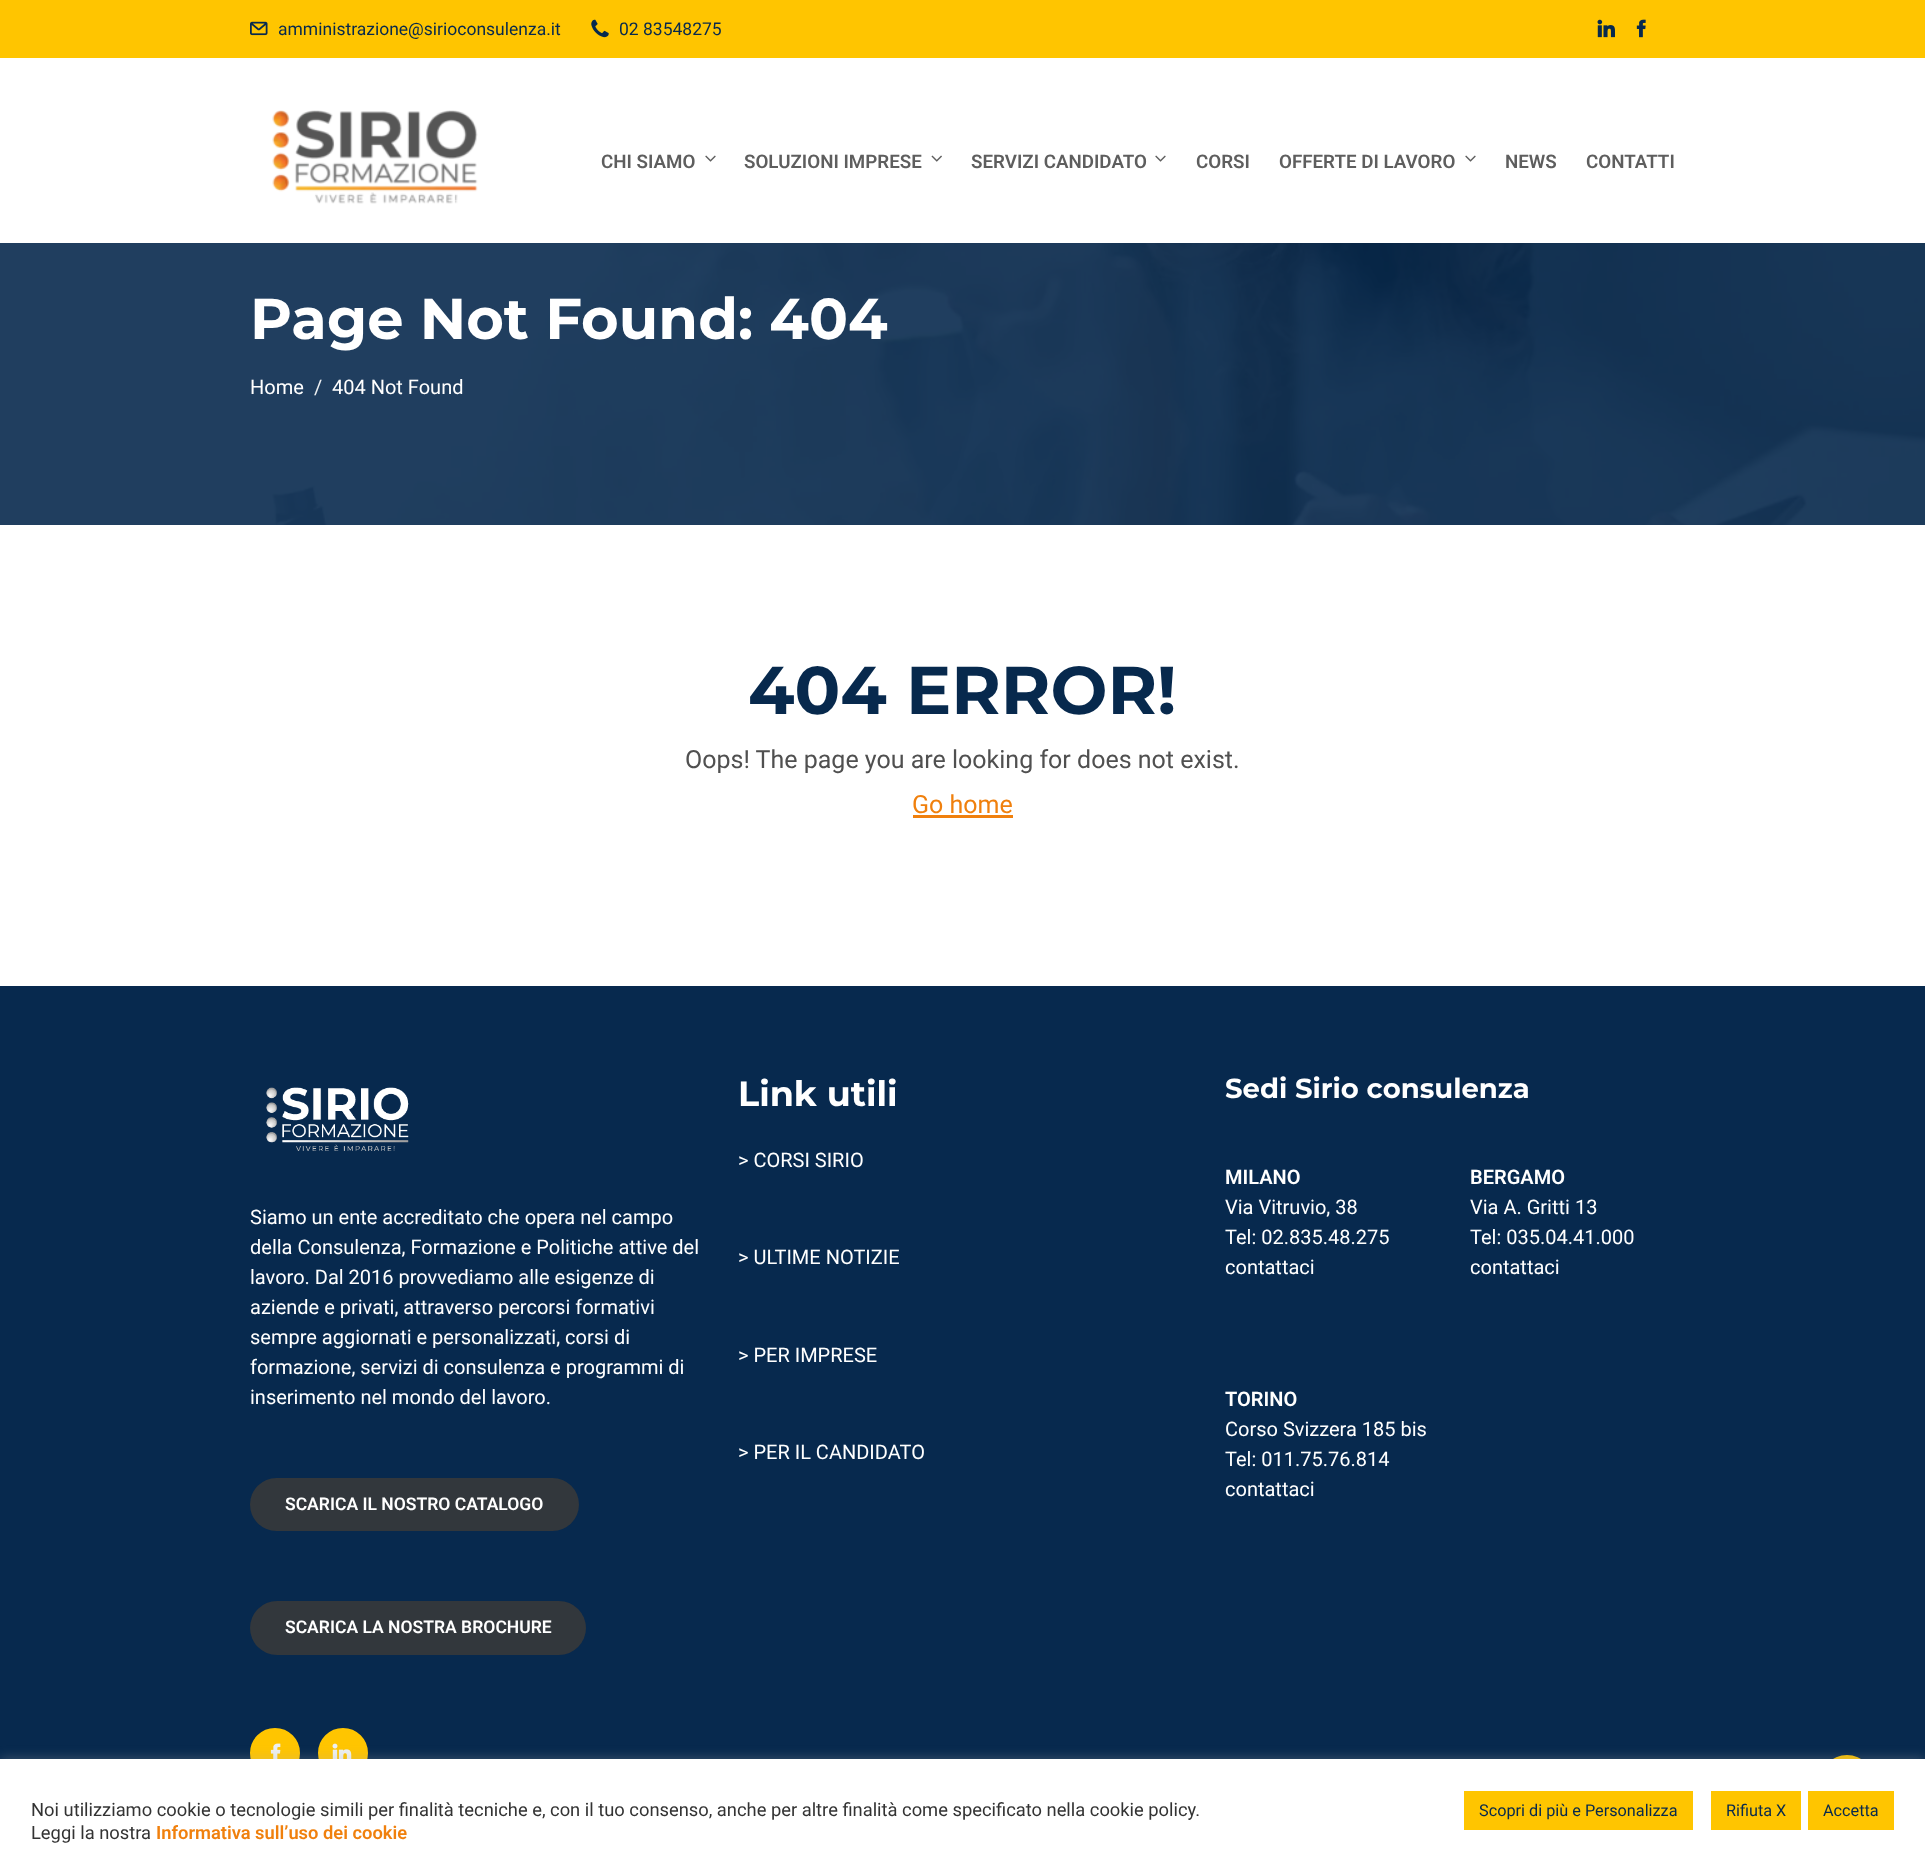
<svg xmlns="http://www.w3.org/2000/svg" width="1925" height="1861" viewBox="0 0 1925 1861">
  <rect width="100%" height="100%" fill="rgb(255,255,255)"/>
  <rect x="0" y="243" width="272" height="282" fill="rgb(32,62,95)"/>
  <rect x="0" y="0" width="1925" height="58" fill="rgb(255,197,0)"/>
  <image x="250" y="21" width="18" height="15" href="pic1.png"/>
  <text x="278" y="35" font-family="Roboto" font-size="17.5" fill="rgb(7,41,77)">amministrazione@sirioconsulenza.it</text>
  <image x="591" y="19" width="18" height="19" href="pic2.png"/>
  <text x="619" y="35" font-family="Roboto" font-size="17.5" fill="rgb(7,41,77)">02 83548275</text>
  <image x="1597" y="19" width="18" height="19" href="pic3.png"/>
  <image x="1636" y="19" width="10" height="19" href="pic4.png"/>
  <image x="272" y="110" width="206" height="94" href="pic5.png"/>
  <text x="601" y="168" font-family="Roboto" font-size="18.75" font-weight="600" fill="rgb(94,94,94)">CHI SIAMO</text>
  <image x="705" y="155" width="11" height="7" href="pic6.png"/>
  <text x="744" y="168" font-family="Roboto" font-size="18.75" font-weight="600" fill="rgb(94,94,94)">SOLUZIONI IMPRESE</text>
  <image x="931" y="155" width="11" height="7" href="pic7.png"/>
  <text x="971" y="168" font-family="Roboto" font-size="18.75" font-weight="600" fill="rgb(94,94,94)">SERVIZI CANDIDATO</text>
  <image x="1155" y="155" width="11" height="7" href="pic6.png"/>
  <g font-family="Roboto" font-size="18.75" font-weight="600" fill="rgb(94,94,94)">
    <text x="1196" y="168">CORSI</text>
    <text x="1279" y="168">OFFERTE DI LAVORO</text>
  </g>
  <image x="1465" y="155" width="11" height="7" href="pic6.png"/>
  <g font-family="Roboto" font-size="18.75" font-weight="600" fill="rgb(94,94,94)">
    <text x="1505" y="168">NEWS</text>
    <text x="1586" y="168">CONTATTI</text>
  </g>
  <image x="272" y="243" width="1653" height="282" href="pic8.png"/>
  <text x="250" y="339" font-family="Montserrat" font-size="57.5" font-weight="bold" fill="rgb(255,255,255)">Page Not Found: 404</text>
  <text x="250" y="394" font-family="Roboto" font-size="20" fill="rgb(255,255,255)">Home</text>
  <text x="314" y="394" font-family="Roboto" font-size="20" fill="rgb(237,240,242)">/</text>
  <text x="332" y="394" font-family="Roboto" font-size="20" fill="rgb(255,255,255)">404 Not Found</text>
  <text x="748" y="714" font-family="Montserrat" font-size="67.5" font-weight="bold" fill="rgb(7,41,77)">404 ERROR!</text>
  <text x="685" y="768" font-family="Roboto" font-size="25" fill="rgb(80,80,80)">Oops! The page you are looking for does not exist.</text>
  <text x="912" y="813" font-family="Roboto" font-size="25" fill="rgb(240,128,13)">Go home</text>
  <rect x="913" y="815" width="100" height="3" fill="rgb(240,128,13)"/>
  <rect x="0" y="986" width="1925" height="773" fill="rgb(7,41,78)"/>
  <image x="266" y="1087" width="143" height="64" href="pic9.png"/>
  <g font-family="Roboto" font-size="20" fill="rgb(255,255,255)">
    <text>
      <tspan x="250" y="1224">Siamo un ente accreditato che opera nel campo</tspan>
      <tspan x="250" y="1254">della Consulenza, Formazione e Politiche attive del</tspan>
      <tspan x="250" y="1284">lavoro. Dal 2016 provvediamo alle esigenze di</tspan>
      <tspan x="250" y="1314">aziende e privati, attraverso percorsi formativi</tspan>
      <tspan x="250" y="1344">sempre aggiornati e personalizzati, corsi di</tspan>
      <tspan x="250" y="1374">formazione, servizi di consulenza e programmi di</tspan>
      <tspan x="250" y="1404">inserimento nel mondo del lavoro.</tspan>
    </text>
  </g>
  <rect x="250" y="1478" width="329" height="53" rx="26.5" fill="rgb(50,55,60)"/>
  <text x="285" y="1510" font-family="Roboto" font-size="17.5" font-weight="600" fill="rgb(255,255,255)">SCARICA IL NOSTRO CATALOGO</text>
  <rect x="250" y="1601" width="336" height="54" rx="27" fill="rgb(50,55,60)"/>
  <text x="285" y="1633" font-family="Roboto" font-size="17.5" font-weight="600" fill="rgb(255,255,255)">SCARICA LA NOSTRA BROCHURE</text>
  <circle cx="275" cy="1753" r="23.5" fill="rgb(255,197,0)" stroke="rgb(255,197,0)" stroke-width="3"/>
  <image x="270" y="1743" width="11" height="16" href="pic10.png"/>
  <circle cx="343" cy="1753" r="23.5" fill="rgb(255,197,0)" stroke="rgb(255,197,0)" stroke-width="3"/>
  <image x="332" y="1743" width="20" height="16" href="pic11.png"/>
  <text x="738" y="1106" font-family="Montserrat" font-size="35" font-weight="bold" fill="rgb(255,255,255)">Link utili</text>
  <g font-family="Roboto" font-size="20" fill="rgb(255,255,255)">
    <text x="738" y="1167">&gt; CORSI SIRIO</text>
    <text x="738" y="1264">&gt; ULTIME NOTIZIE</text>
    <text x="738" y="1362">&gt; PER IMPRESE</text>
    <text x="738" y="1459">&gt; PER IL CANDIDATO</text>
  </g>
  <text x="1225" y="1098" font-family="Montserrat" font-size="27.5" font-weight="bold" fill="rgb(255,255,255)">Sedi Sirio consulenza</text>
  <text x="1225" y="1184" font-family="Roboto" font-size="20" font-weight="600" fill="rgb(255,255,255)">MILANO</text>
  <g font-family="Roboto" font-size="20" fill="rgb(255,255,255)">
    <text>
      <tspan x="1225" y="1214">Via Vitruvio, 38</tspan>
      <tspan x="1225" y="1244">Tel: 02.835.48.275</tspan>
      <tspan x="1225" y="1274">contattaci</tspan>
    </text>
  </g>
  <text x="1470" y="1184" font-family="Roboto" font-size="20" font-weight="600" fill="rgb(255,255,255)">BERGAMO</text>
  <g font-family="Roboto" font-size="20" fill="rgb(255,255,255)">
    <text>
      <tspan x="1470" y="1214">Via A. Gritti 13</tspan>
      <tspan x="1470" y="1244">Tel: 035.04.41.000</tspan>
      <tspan x="1470" y="1274">contattaci</tspan>
    </text>
  </g>
  <text x="1225" y="1406" font-family="Roboto" font-size="20" font-weight="600" fill="rgb(255,255,255)">TORINO</text>
  <g font-family="Roboto" font-size="20" fill="rgb(255,255,255)">
    <text>
      <tspan x="1225" y="1436">Corso Svizzera 185 bis</tspan>
      <tspan x="1225" y="1466">Tel: 011.75.76.814</tspan>
      <tspan x="1225" y="1496">contattaci</tspan>
    </text>
  </g>
  <circle cx="1847" cy="1783" r="28" fill="rgb(243,189,4)"/>
  <rect x="0" y="1758" width="1925" height="102" fill="rgba(172,171,171,0.3)" filter="blur(6px)"/>
  <rect x="0" y="1759" width="1925" height="102" fill="rgb(255,255,255)"/>
  <g font-family="Roboto" font-size="18.33" fill="rgb(51,51,51)">
    <text>
      <tspan x="31" y="1816">Noi utilizziamo cookie o tecnologie simili per finalità tecniche e, con il tuo consenso, anche per altre finalità come specificato nella cookie policy.</tspan>
      <tspan x="31" y="1839">Leggi la nostra</tspan>
    </text>
  </g>
  <text x="156" y="1839" font-family="Roboto" font-size="18.33" font-weight="600" fill="rgb(240,128,13)">Informativa sull’uso dei cookie</text>
  <rect x="1464" y="1791" width="229" height="39" fill="rgb(255,197,0)"/>
  <text x="1479" y="1816" font-family="Roboto" font-size="16.25" fill="rgb(7,41,77)">Scopri di più e Personalizza</text>
  <rect x="1711" y="1791" width="90" height="39" fill="rgb(255,197,0)"/>
  <text x="1726" y="1816" font-family="Roboto" font-size="16.25" fill="rgb(7,41,77)">Rifiuta X</text>
  <rect x="1808" y="1791" width="86" height="39" fill="rgb(255,197,0)"/>
  <text x="1823" y="1816" font-family="Roboto" font-size="16.25" fill="rgb(7,41,77)">Accetta</text>
</svg>
